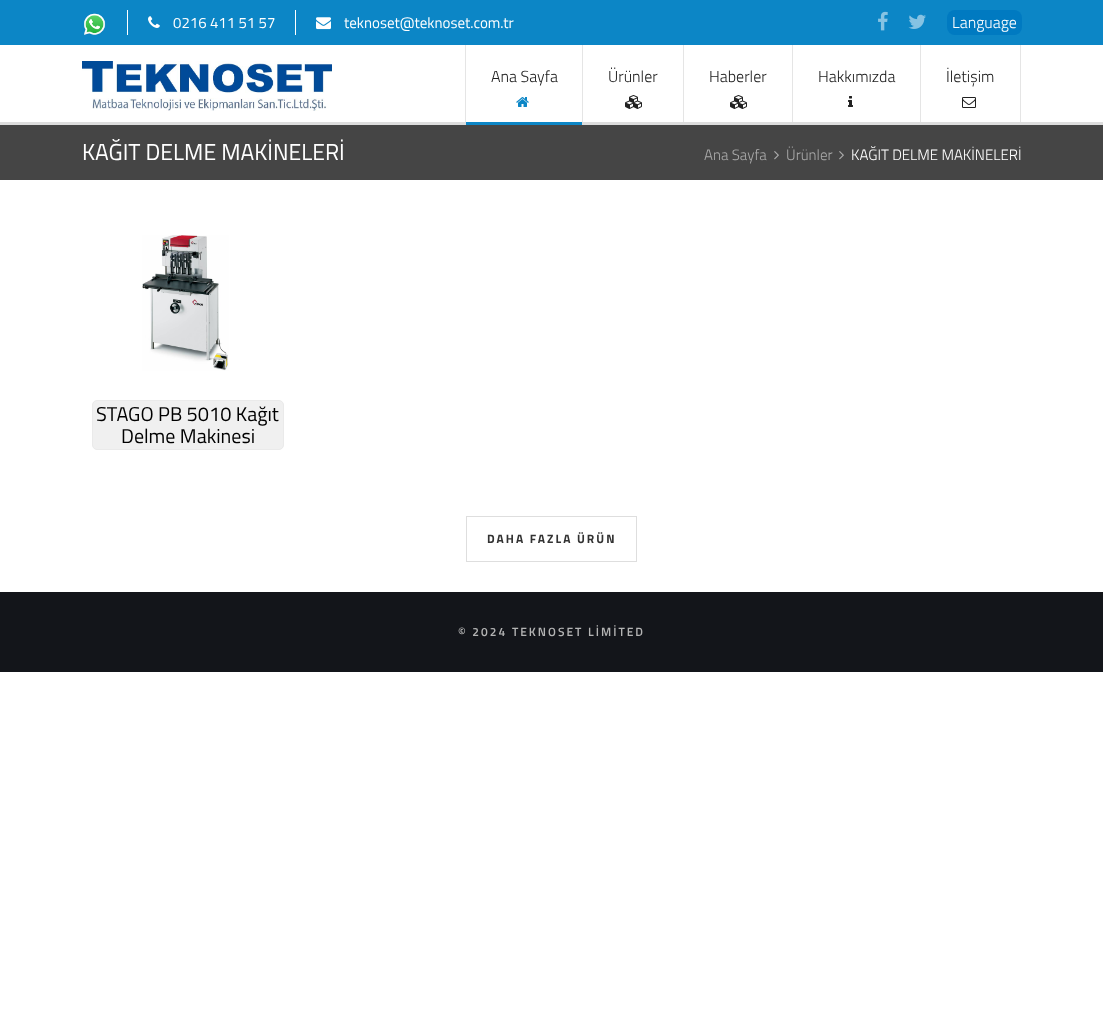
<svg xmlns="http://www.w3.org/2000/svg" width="1103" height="1018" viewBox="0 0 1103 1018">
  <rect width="100%" height="100%" fill="rgb(255,255,255)"/>
  <rect x="0" y="0" width="1103" height="45" fill="rgb(12,134,198)"/>
  <image x="84" y="13" width="22" height="22" href="pic1.png"/>
  <rect x="127" y="10" width="1" height="25" fill="rgb(255,255,255)"/>
  <image x="148" y="16" width="12" height="12" href="pic2.png"/>
  <text x="173" y="28" font-family="Titillium Web" font-size="15" fill="rgb(255,255,255)">0216 411 51 57</text>
  <rect x="295" y="10" width="1" height="25" fill="rgb(255,255,255)"/>
  <image x="316" y="17" width="15" height="13" href="pic3.png"/>
  <text x="344" y="28" font-family="Titillium Web" font-size="15" fill="rgb(255,255,255)">teknoset@teknoset.com.tr</text>
  <image x="878" y="11" width="10" height="20" href="pic4.png"/>
  <image x="908" y="14" width="18" height="15" href="pic5.png"/>
  <rect x="947" y="10" width="75" height="25" rx="8" fill="rgb(0,122,193)"/>
  <text x="952" y="28" font-family="Titillium Web" font-size="16" font-weight="300" fill="rgb(255,255,255)">Language</text>
  <rect x="0" y="122" width="1103" height="3" fill="rgb(221,221,221)"/>
  <image x="82" y="61" width="250" height="50" href="pic6.png"/>
  <rect x="582" y="45" width="1" height="77" fill="rgb(229,229,229)"/>
  <rect x="465" y="45" width="1" height="77" fill="rgb(229,229,229)"/>
  <text x="491" y="82" font-family="Titillium Web" font-size="16" font-weight="300" fill="rgb(33,33,33)">Ana Sayfa</text>
  <image x="516" y="97" width="13" height="10" href="pic7.png"/>
  <rect x="466" y="122" width="116" height="3" fill="rgb(12,134,198)"/>
  <rect x="683" y="45" width="1" height="77" fill="rgb(229,229,229)"/>
  <text x="608" y="82" font-family="Titillium Web" font-size="16" font-weight="300" fill="rgb(33,33,33)">Ürünler</text>
  <image x="625" y="95" width="17" height="14" href="pic8.png"/>
  <rect x="792" y="45" width="1" height="77" fill="rgb(229,229,229)"/>
  <text x="709" y="82" font-family="Titillium Web" font-size="16" font-weight="300" fill="rgb(33,33,33)">Haberler</text>
  <image x="730" y="95" width="17" height="14" href="pic8.png"/>
  <rect x="920" y="45" width="1" height="77" fill="rgb(229,229,229)"/>
  <text x="818" y="82" font-family="Titillium Web" font-size="16" font-weight="300" fill="rgb(33,33,33)">Hakkımızda</text>
  <image x="848" y="96" width="5" height="11" href="pic9.png"/>
  <rect x="1020" y="45" width="1" height="77" fill="rgb(229,229,229)"/>
  <text x="946" y="82" font-family="Titillium Web" font-size="16" font-weight="300" fill="rgb(33,33,33)">İletişim</text>
  <image x="962" y="97" width="14" height="11" href="pic10.png"/>
  <rect x="0" y="125" width="1103" height="55" fill="rgb(69,69,69)"/>
  <text x="82" y="160" font-family="Titillium Web" font-size="23" fill="rgb(255,255,255)">KAĞIT DELME MAKİNELERİ</text>
  <text x="704" y="160" font-family="Titillium Web" font-size="15" font-weight="300" fill="rgb(170,170,170)">Ana Sayfa</text>
  <image x="774" y="151" width="5" height="9" href="pic11.png"/>
  <text x="786" y="160" font-family="Titillium Web" font-size="15" font-weight="300" fill="rgb(170,170,170)">Ürünler</text>
  <image x="839" y="151" width="5" height="9" href="pic11.png"/>
  <text x="851" y="160" font-family="Titillium Web" font-size="15" font-weight="300" fill="rgb(255,255,255)">KAĞIT DELME MAKİNELERİ</text>
  <image x="142" y="235" width="87" height="136" href="pic12.png"/>
  <rect x="92.5" y="400.5" width="191" height="49" rx="4.5" fill="rgb(240,240,240)" stroke="rgb(234,234,234)"/>
  <g font-family="Titillium Web" font-size="20" fill="rgb(0,0,0)">
    <text x="96" y="421">STAGO PB 5010 Kağıt</text>
    <text x="121" y="443">Delme Makinesi</text>
  </g>
  <rect x="466.5" y="516.5" width="170" height="45" fill="none" stroke="rgb(222,222,222)"/>
  <text x="487" y="543" font-family="Titillium Web" font-size="12" font-weight="bold" letter-spacing="2" fill="rgb(51,51,51)">DAHA FAZLA ÜRÜN</text>
  <rect x="0" y="592" width="1103" height="80" fill="rgb(19,21,26)"/>
  <text x="458" y="636" font-family="Titillium Web" font-size="12" font-weight="600" letter-spacing="2" fill="rgb(180,180,180)">© 2024 TEKNOSET LİMİTED</text>
</svg>
